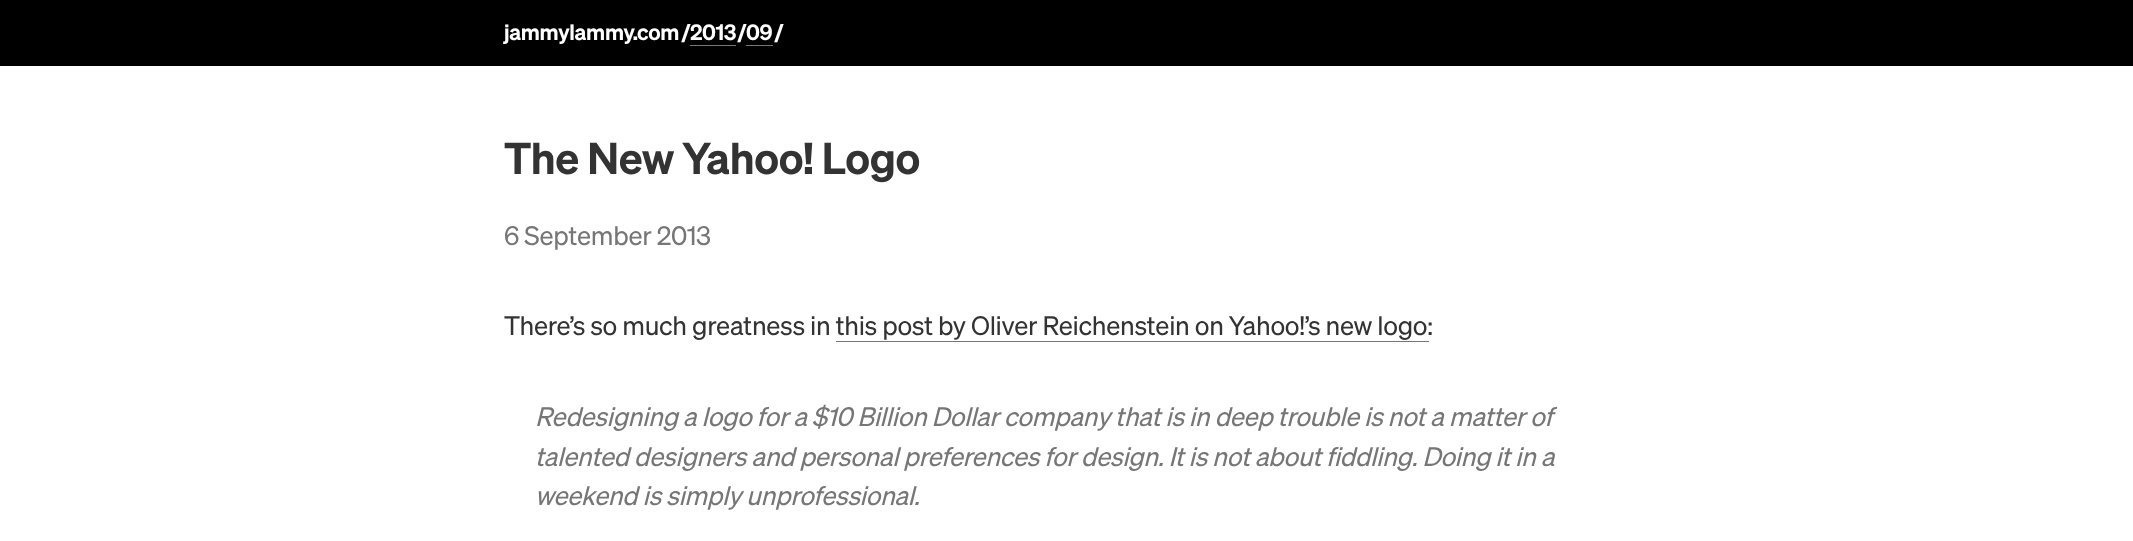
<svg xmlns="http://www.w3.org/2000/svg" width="2133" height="541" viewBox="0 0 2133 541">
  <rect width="100%" height="100%" fill="rgb(255,255,255)"/>
  <rect x="0" y="0" width="2133" height="66" fill="rgb(0,0,0)"/>
  <g font-family="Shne" font-size="21.75" font-weight="600" letter-spacing="-0.3" fill="rgb(255,255,255)">
    <text x="504" y="40">jammylammy.com</text>
    <text x="681" y="40">/</text>
    <text x="690" y="40">2013</text>
  </g>
  <rect x="690" y="45" width="46" height="1" fill="rgb(118,118,118)"/>
  <g font-family="Shne" font-size="21.75" font-weight="600" letter-spacing="-0.3" fill="rgb(255,255,255)">
    <text x="737" y="40">/</text>
    <text x="746" y="40">09</text>
  </g>
  <rect x="746" y="45" width="27" height="1" fill="rgb(118,118,118)"/>
  <text x="774" y="40" font-family="Shne" font-size="21.75" font-weight="600" letter-spacing="-0.3" fill="rgb(255,255,255)">/</text>
  <text x="504" y="174" font-family="Shne" font-size="43.5" font-weight="600" letter-spacing="-0.3" fill="rgb(51,51,51)">The New Yahoo! Logo</text>
  <text x="504" y="245" font-family="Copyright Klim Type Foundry" font-size="26.1" letter-spacing="-0.3" fill="rgb(118,118,118)">6 September 2013</text>
  <text x="504" y="335" font-family="Copyright Klim Type Foundry" font-size="26.1" letter-spacing="-0.3" fill="rgb(51,51,51)">There’s so much greatness in this post by Oliver Reichenstein on Yahoo!’s new logo:</text>
  <rect x="836" y="341" width="593" height="1" fill="rgb(118,118,118)"/>
  <g font-family="Copyright Klim Type Foundry" font-size="26.1" font-style="italic" letter-spacing="-0.3" fill="rgb(118,118,118)">
    <text>
      <tspan x="535" y="426">Redesigning a logo for a $10 Billion Dollar company that is in deep trouble is not a matter of</tspan>
      <tspan x="535" y="466">talented designers and personal preferences for design. It is not about fiddling. Doing it in a</tspan>
      <tspan x="535" y="505">weekend is simply unprofessional.</tspan>
    </text>
  </g>
</svg>
